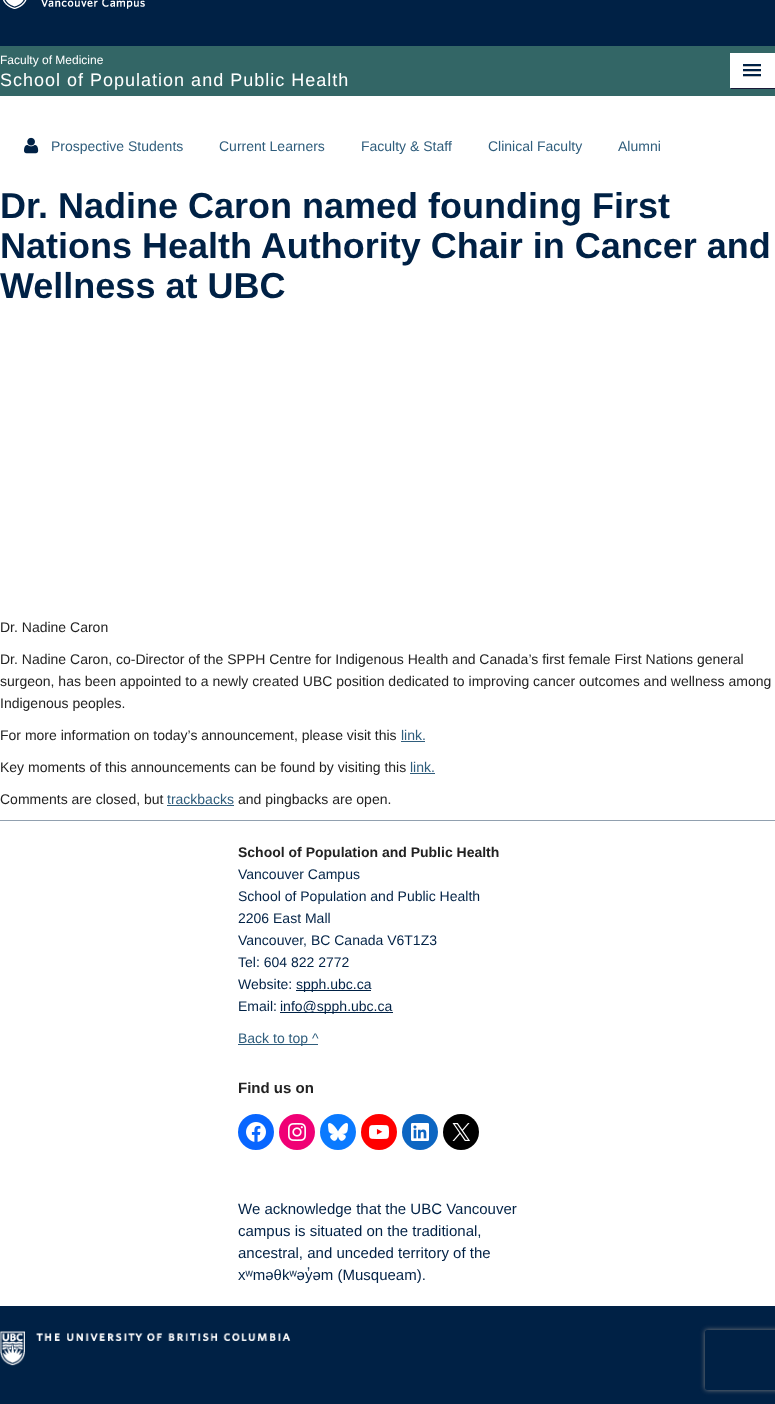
<svg xmlns="http://www.w3.org/2000/svg" width="775" height="1404" viewBox="0 0 775 1404">
  <defs>
    <clipPath id="clip1"><path d="M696 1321H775V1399H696ZM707 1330H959C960 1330 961 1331 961 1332V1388C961 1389 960 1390 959 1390H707C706 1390 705 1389 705 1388V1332C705 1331 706 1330 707 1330Z" clip-rule="evenodd"/></clipPath>
  </defs>
  <rect width="100%" height="100%" fill="rgb(255,255,255)"/>
  <rect x="0" y="0" width="775" height="46" fill="rgb(0,33,69)"/>
  <image x="3" y="0" width="24" height="9" href="pic1.png"/>
  <image x="41" y="0" width="104" height="9" href="pic2.png"/>
  <rect x="0" y="46" width="775" height="50" fill="rgb(51,102,102)"/>
  <text x="0" y="64" font-family="Liberation Sans" font-size="12" fill="rgb(255,255,255)">Faculty of Medicine</text>
  <text x="0" y="86" font-family="Liberation Sans" font-size="18" letter-spacing="1" fill="rgb(255,255,255)">School of Population and Public Health</text>
  <rect x="731" y="54" width="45" height="35" fill="rgb(25,25,56)" filter="blur(0.5px)"/>
  <rect x="730" y="53" width="45" height="35" fill="rgb(255,255,255)"/>
  <rect x="743" y="66" width="18" height="1" fill="rgb(191,191,191)"/>
  <rect x="743" y="64" width="18" height="2" fill="rgb(0,33,69)"/>
  <rect x="743" y="71" width="18" height="1" fill="rgb(191,191,191)"/>
  <rect x="743" y="69" width="18" height="2" fill="rgb(0,33,69)"/>
  <rect x="743" y="76" width="18" height="1" fill="rgb(191,191,191)"/>
  <rect x="743" y="74" width="18" height="2" fill="rgb(0,33,69)"/>
  <image x="24" y="137" width="15" height="17" href="pic3.png"/>
  <g font-family="Liberation Sans" font-size="14" fill="rgb(47,93,124)">
    <text x="51" y="151">Prospective Students</text>
    <text x="219" y="151">Current Learners</text>
    <text x="361" y="151">Faculty &amp; Staff</text>
    <text x="488" y="151">Clinical Faculty</text>
    <text x="618" y="151">Alumni</text>
  </g>
  <g font-family="Liberation Sans" font-size="36" font-weight="bold" fill="rgb(0,33,69)">
    <text>
      <tspan x="0" y="218">Dr. Nadine Caron named founding First</tspan>
      <tspan x="0" y="258">Nations Health Authority Chair in Cancer and</tspan>
      <tspan x="0" y="298">Wellness at UBC</tspan>
    </text>
  </g>
  <g font-family="Liberation Sans" font-size="14" fill="rgb(34,34,34)">
    <text x="0" y="632">Dr. Nadine Caron</text>
    <text>
      <tspan x="0" y="664">Dr. Nadine Caron, co-Director of the SPPH Centre for Indigenous Health and Canada’s first female First Nations general</tspan>
      <tspan x="0" y="686">surgeon, has been appointed to a newly created UBC position dedicated to improving cancer outcomes and wellness among</tspan>
      <tspan x="0" y="708">Indigenous peoples.</tspan>
    </text>
    <text x="0" y="740">For more information on today’s announcement, please visit this</text>
  </g>
  <text x="401" y="740" font-family="Liberation Sans" font-size="14" fill="rgb(47,93,124)">link.</text>
  <rect x="401" y="741" width="24" height="1" fill="rgb(47,93,124)"/>
  <text x="0" y="772" font-family="Liberation Sans" font-size="14" fill="rgb(34,34,34)">Key moments of this announcements can be found by visiting this</text>
  <text x="410" y="772" font-family="Liberation Sans" font-size="14" fill="rgb(47,93,124)">link.</text>
  <rect x="410" y="773" width="25" height="1" fill="rgb(47,93,124)"/>
  <text x="0" y="804" font-family="Liberation Sans" font-size="14" fill="rgb(34,34,34)">Comments are closed, but</text>
  <text x="167" y="804" font-family="Liberation Sans" font-size="14" fill="rgb(47,93,124)">trackbacks</text>
  <rect x="167" y="805" width="67" height="1" fill="rgb(47,93,124)"/>
  <text x="238" y="804" font-family="Liberation Sans" font-size="14" fill="rgb(34,34,34)">and pingbacks are open.</text>
  <rect x="0" y="820" width="775" height="1" fill="rgb(145,160,175)"/>
  <text x="238" y="857" font-family="Liberation Sans" font-size="14" font-weight="bold" fill="rgb(34,34,34)">School of Population and Public Health</text>
  <g font-family="Liberation Sans" font-size="14" fill="rgb(0,33,69)">
    <text>
      <tspan x="238" y="879">Vancouver Campus</tspan>
      <tspan x="238" y="901">School of Population and Public Health</tspan>
      <tspan x="238" y="923">2206 East Mall</tspan>
      <tspan x="238" y="945">Vancouver, BC Canada V6T1Z3</tspan>
      <tspan x="238" y="967">Tel: 604 822 2772</tspan>
      <tspan x="238" y="989">Website:</tspan>
    </text>
  </g>
  <rect x="296" y="990" width="75" height="1" fill="rgb(0,33,69)"/>
  <g font-family="Liberation Sans" font-size="14" fill="rgb(0,33,69)">
    <text x="296" y="989">spph.ubc.ca</text>
    <text x="238" y="1011">Email:</text>
  </g>
  <rect x="280" y="1012" width="113" height="1" fill="rgb(0,33,69)"/>
  <text x="280" y="1011" font-family="Liberation Sans" font-size="14" fill="rgb(0,33,69)">info@spph.ubc.ca</text>
  <rect x="238" y="1044" width="80" height="1" fill="rgb(47,93,124)"/>
  <text x="238" y="1043" font-family="Liberation Sans" font-size="14" fill="rgb(47,93,124)">Back to top ^</text>
  <text x="238" y="1093" font-family="Liberation Sans" font-size="15" font-weight="bold" fill="rgb(34,34,34)">Find us on</text>
  <circle cx="256" cy="1132" r="18" fill="rgb(8,102,255)"/>
  <image x="246" y="1122" width="20" height="20" href="pic4.png"/>
  <circle cx="297" cy="1132" r="18" fill="rgb(240,0,117)"/>
  <image x="288" y="1123" width="18" height="18" href="pic5.png"/>
  <circle cx="338" cy="1132" r="18" fill="rgb(10,122,255)"/>
  <image x="328" y="1123" width="20" height="18" href="pic6.png"/>
  <circle cx="379" cy="1132" r="18" fill="rgb(255,0,0)"/>
  <image x="369" y="1125" width="20" height="14" href="pic7.png"/>
  <circle cx="420" cy="1132" r="18" fill="rgb(13,102,194)"/>
  <image x="411" y="1123" width="18" height="18" href="pic8.png"/>
  <circle cx="461" cy="1132" r="18" fill="rgb(0,0,0)"/>
  <image x="452" y="1123" width="18" height="18" href="pic9.png"/>
  <g font-family="Liberation Sans" font-size="15" fill="rgb(0,33,69)">
    <text>
      <tspan x="238" y="1214">We acknowledge that the UBC Vancouver</tspan>
      <tspan x="238" y="1236">campus is situated on the traditional,</tspan>
      <tspan x="238" y="1258">ancestral, and unceded territory of the</tspan>
      <tspan x="238" y="1280">xʷməθkʷəy̓əm (Musqueam).</tspan>
    </text>
  </g>
  <rect x="0" y="1306" width="775" height="98" fill="rgb(0,33,69)"/>
  <image x="0" y="1331" width="291" height="35" href="pic10.png"/>
  <g clip-path="url(#clip1)">
    <rect x="705" y="1330" width="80" height="60" rx="2" fill="rgb(128,128,128)" filter="blur(2.5px)"/>
  </g>
</svg>
